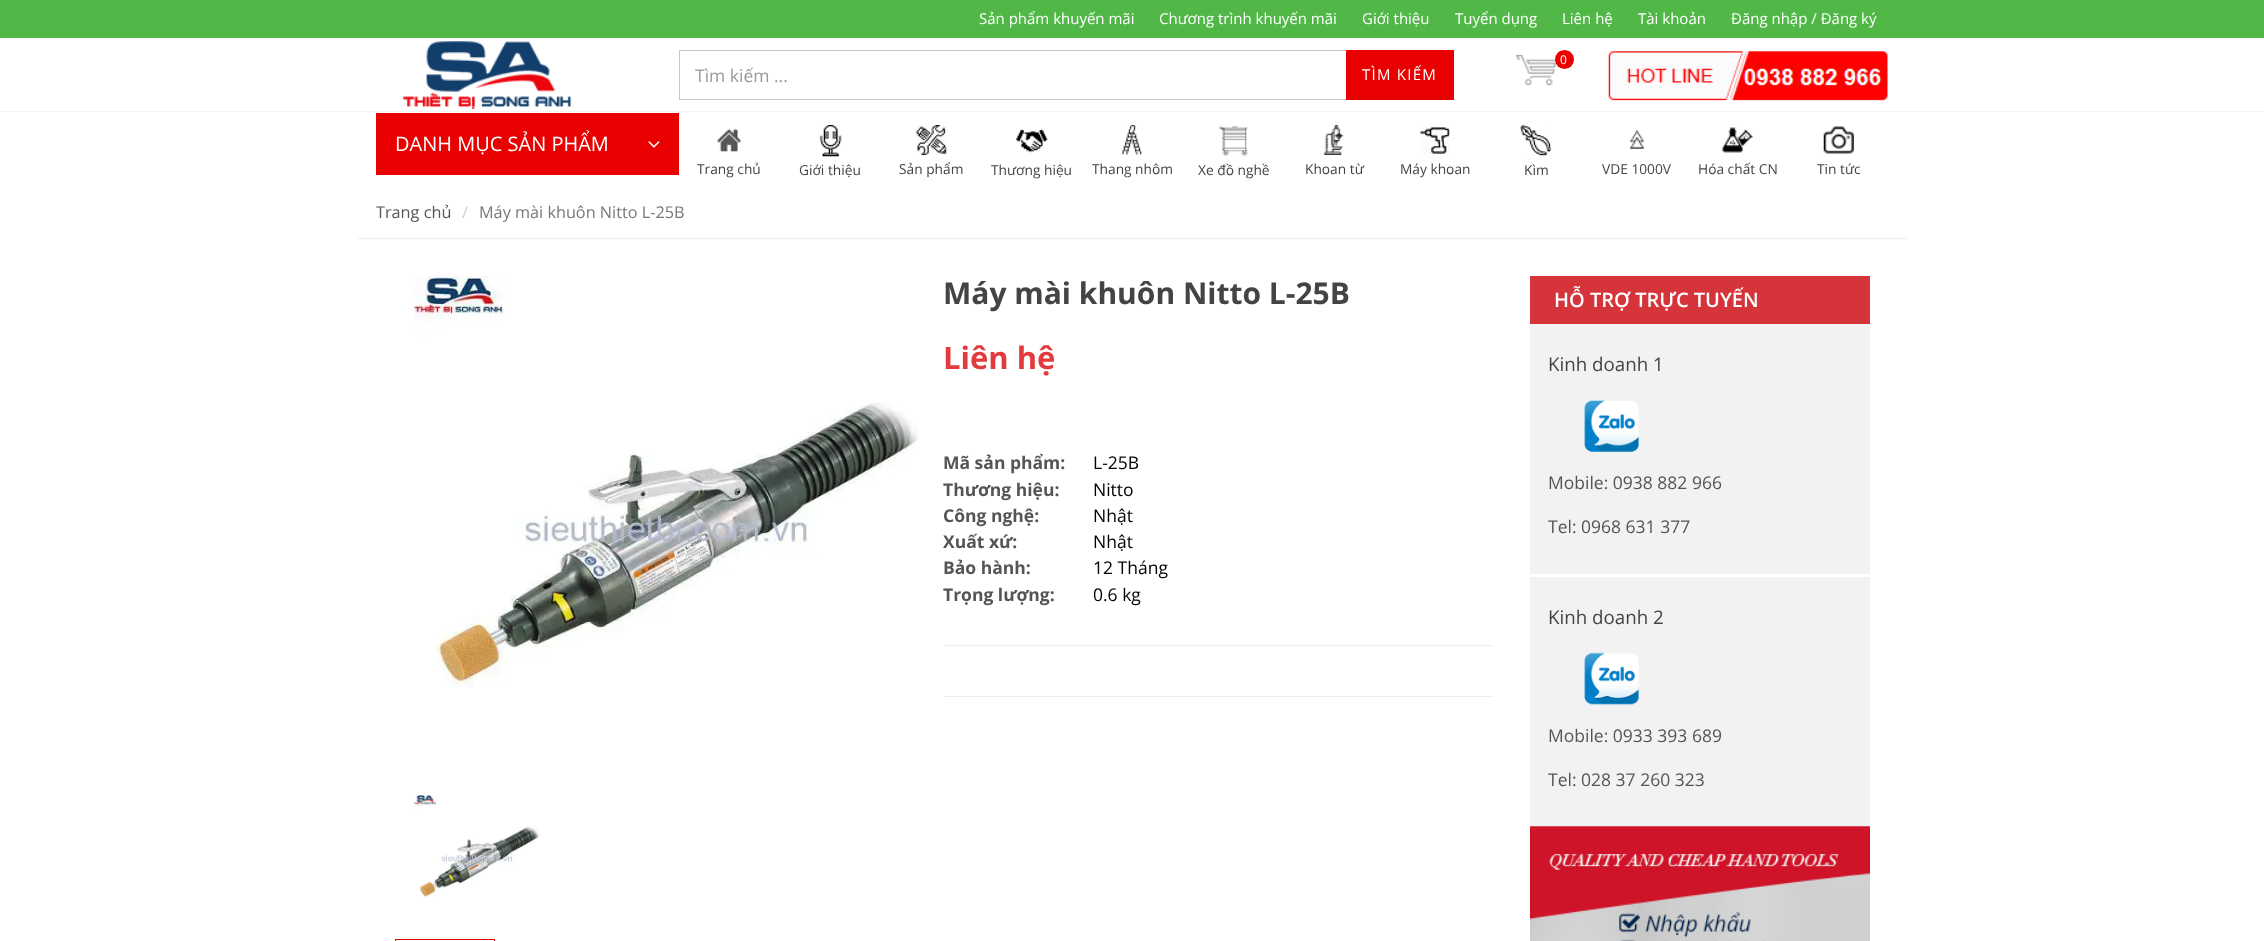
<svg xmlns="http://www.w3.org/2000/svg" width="2264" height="941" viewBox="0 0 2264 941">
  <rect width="100%" height="100%" fill="rgb(255,255,255)"/>
  <rect x="0" y="0" width="2264" height="38" fill="rgb(81,184,72)"/>
  <g font-family="Open Sans" font-size="15" fill="rgb(255,255,255)">
    <text x="979" y="24">Sản phẩm khuyến mãi</text>
    <text x="1159" y="24">Chương trình khuyến mãi</text>
    <text x="1362" y="24">Giới thiệu</text>
    <text x="1455" y="24">Tuyển dụng</text>
    <text x="1562" y="24">Liên hệ</text>
    <text x="1638" y="24">Tài khoản</text>
    <text x="1731" y="24">Đăng nhập / Đăng ký</text>
  </g>
  <rect x="0" y="111" width="2264" height="1" fill="rgb(245,245,245)"/>
  <image x="402" y="41" width="170" height="69" href="pic1.png"/>
  <image x="1516" y="54" width="41" height="32" href="pic2.png"/>
  <circle cx="1564.5" cy="59.5" r="9.5" fill="rgb(233,0,0)"/>
  <text x="1560" y="64" font-family="Open Sans" font-size="12" fill="rgb(255,255,255)">0</text>
  <image x="1608" y="51" width="280" height="50" href="pic3.png"/>
  <rect x="679" y="50" width="672" height="1" fill="rgb(198,198,198)"/>
  <rect x="679" y="99" width="672" height="1" fill="rgb(198,198,198)"/>
  <rect x="679" y="50" width="1" height="50" fill="rgb(198,198,198)"/>
  <text x="695" y="82" font-family="Open Sans" font-size="17.5" fill="rgb(153,153,153)">Tìm kiếm ...</text>
  <rect x="1346" y="50" width="108" height="50" fill="rgb(233,0,0)"/>
  <text x="1362" y="80" font-family="Open Sans" font-size="15" letter-spacing="1.25" fill="rgb(255,255,255)">TÌM KIẾM</text>
  <rect x="376" y="113" width="303" height="62" fill="rgb(233,0,0)"/>
  <text x="395" y="151" font-family="Open Sans" font-size="20" fill="rgb(255,255,255)">DANH MỤC SẢN PHẨM</text>
  <image x="648" y="141" width="12" height="7" href="pic4.png"/>
  <image x="716" y="128" width="26" height="24" href="pic5.png"/>
  <text x="697" y="174" font-family="Open Sans" font-size="13.75" fill="rgb(68,68,68)">Trang chủ</text>
  <image x="819" y="125" width="23" height="32" href="pic6.png"/>
  <text x="799" y="175" font-family="Open Sans" font-size="13.75" fill="rgb(68,68,68)">Giới thiệu</text>
  <image x="916" y="125" width="31" height="30" href="pic7.png"/>
  <text x="899" y="174" font-family="Open Sans" font-size="13.75" fill="rgb(68,68,68)">Sản phẩm</text>
  <image x="1016" y="128" width="32" height="25" href="pic8.png"/>
  <text x="991" y="175" font-family="Open Sans" font-size="13.75" fill="rgb(68,68,68)">Thương hiệu</text>
  <image x="1121" y="125" width="21" height="30" href="pic9.png"/>
  <text x="1092" y="174" font-family="Open Sans" font-size="13.75" fill="rgb(68,68,68)">Thang nhôm</text>
  <image x="1218" y="126" width="30" height="31" href="pic10.png"/>
  <text x="1198" y="175" font-family="Open Sans" font-size="13.75" fill="rgb(68,68,68)">Xe đồ nghề</text>
  <image x="1323" y="125" width="21" height="30" href="pic11.png"/>
  <text x="1305" y="174" font-family="Open Sans" font-size="13.75" fill="rgb(68,68,68)">Khoan từ</text>
  <image x="1420" y="127" width="30" height="28" href="pic12.png"/>
  <text x="1400" y="174" font-family="Open Sans" font-size="13.75" fill="rgb(68,68,68)">Máy khoan</text>
  <image x="1520" y="125" width="32" height="32" href="pic13.png"/>
  <text x="1524" y="175" font-family="Open Sans" font-size="13.75" fill="rgb(68,68,68)">Kìm</text>
  <image x="1629" y="130" width="15" height="19" href="pic14.png"/>
  <text x="1602" y="174" font-family="Open Sans" font-size="13.75" fill="rgb(68,68,68)">VDE 1000V</text>
  <image x="1722" y="127" width="31" height="26" href="pic15.png"/>
  <text x="1698" y="174" font-family="Open Sans" font-size="13.75" fill="rgb(68,68,68)">Hóa chất CN</text>
  <image x="1823" y="126" width="31" height="28" href="pic16.png"/>
  <text x="1817" y="174" font-family="Open Sans" font-size="13.75" fill="rgb(68,68,68)">Tin tức</text>
  <rect x="358" y="238" width="1550" height="1" fill="rgb(238,238,238)"/>
  <text x="376" y="218" font-family="Open Sans" font-size="16.25" fill="rgb(85,85,85)">Trang chủ</text>
  <text x="462" y="218" font-family="Open Sans" font-size="16.25" fill="rgb(204,204,204)">/</text>
  <text x="479" y="218" font-family="Open Sans" font-size="16.25" fill="rgb(119,119,119)">Máy mài khuôn Nitto L-25B</text>
  <image x="414" y="276" width="505" height="412" href="pic17.png"/>
  <image x="414" y="795" width="126" height="103" href="pic18.png"/>
  <text x="943" y="304" font-family="Open Sans" font-size="30" font-weight="bold" fill="rgb(68,68,68)">Máy mài khuôn Nitto L-25B</text>
  <text x="943" y="369" font-family="Open Sans" font-size="31" font-weight="bold" fill="rgb(227,58,61)">Liên hệ</text>
  <text x="943" y="469" font-family="Open Sans" font-size="17.5" font-weight="bold" fill="rgb(85,85,85)">Mã sản phẩm:</text>
  <text x="1093" y="469" font-family="Open Sans" font-size="17.5" fill="rgb(0,0,0)">L-25B</text>
  <text x="943" y="496" font-family="Open Sans" font-size="17.5" font-weight="bold" fill="rgb(85,85,85)">Thương hiệu:</text>
  <text x="1093" y="496" font-family="Open Sans" font-size="17.5" fill="rgb(0,0,0)">Nitto</text>
  <text x="943" y="522" font-family="Open Sans" font-size="17.5" font-weight="bold" fill="rgb(85,85,85)">Công nghệ:</text>
  <text x="1093" y="522" font-family="Open Sans" font-size="17.5" fill="rgb(0,0,0)">Nhật</text>
  <text x="943" y="548" font-family="Open Sans" font-size="17.5" font-weight="bold" fill="rgb(85,85,85)">Xuất xứ:</text>
  <text x="1093" y="548" font-family="Open Sans" font-size="17.5" fill="rgb(0,0,0)">Nhật</text>
  <text x="943" y="574" font-family="Open Sans" font-size="17.5" font-weight="bold" fill="rgb(85,85,85)">Bảo hành:</text>
  <text x="1093" y="574" font-family="Open Sans" font-size="17.5" fill="rgb(0,0,0)">12 Tháng</text>
  <text x="943" y="601" font-family="Open Sans" font-size="17.5" font-weight="bold" fill="rgb(85,85,85)">Trọng lượng:</text>
  <text x="1093" y="601" font-family="Open Sans" font-size="17.5" fill="rgb(0,0,0)">0.6 kg</text>
  <rect x="944" y="645" width="549" height="1" fill="rgb(238,238,238)"/>
  <rect x="944" y="696" width="549" height="1" fill="rgb(238,238,238)"/>
  <rect x="395" y="939" width="100" height="1" fill="rgb(233,0,0)"/>
  <rect x="494" y="939" width="1" height="2" fill="rgb(233,0,0)"/>
  <rect x="395" y="939" width="1" height="2" fill="rgb(233,0,0)"/>
  <rect x="1530" y="276" width="340" height="48" fill="rgb(213,52,58)"/>
  <text x="1554" y="307" font-family="Open Sans" font-size="20" font-weight="600" fill="rgb(255,255,255)">HỖ TRỢ TRỰC TUYẾN</text>
  <rect x="1530" y="324" width="340" height="502" fill="rgb(242,242,242)"/>
  <rect x="1530" y="574" width="340" height="3" fill="rgb(255,255,255)"/>
  <text x="1548" y="371" font-family="Open Sans" font-size="18.75" fill="rgb(68,68,68)">Kinh doanh 1</text>
  <image x="1584" y="400" width="55" height="52" href="pic19.png"/>
  <g font-family="Open Sans" font-size="17.5" fill="rgb(85,85,85)">
    <text x="1548" y="489">Mobile: 0938 882 966</text>
    <text x="1548" y="533">Tel: 0968 631 377</text>
  </g>
  <text x="1548" y="624" font-family="Open Sans" font-size="18.75" fill="rgb(68,68,68)">Kinh doanh 2</text>
  <image x="1584" y="652" width="55" height="53" href="pic20.png"/>
  <g font-family="Open Sans" font-size="17.5" fill="rgb(85,85,85)">
    <text x="1548" y="742">Mobile: 0933 393 689</text>
    <text x="1548" y="786">Tel: 028 37 260 323</text>
  </g>
  <image x="1530" y="826" width="340" height="115" href="pic21.png"/>
</svg>
